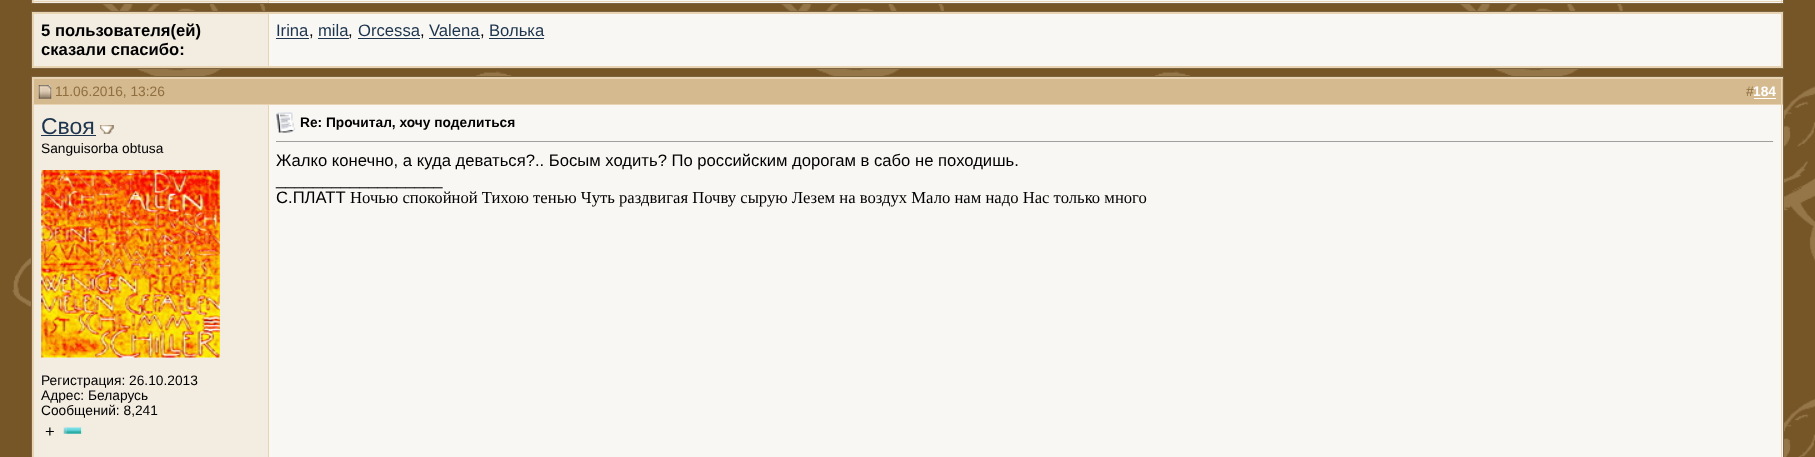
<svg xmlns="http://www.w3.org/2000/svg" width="1815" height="457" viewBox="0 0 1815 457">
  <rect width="100%" height="100%" fill="rgb(118,86,39)"/>
  <image x="12" y="0" width="1803" height="457" href="pic1.png"/>
  <rect x="31" y="0" width="2" height="3" fill="rgb(232,211,179)"/>
  <rect x="31.5" y="-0.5" width="1752" height="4" fill="none" stroke="rgb(125,100,64)"/>
  <rect x="33" y="0" width="236" height="3" fill="rgb(243,236,225)"/>
  <rect x="268" y="0" width="1" height="3" fill="rgb(232,211,179)"/>
  <rect x="33" y="1" width="236" height="1" fill="rgb(232,211,179)"/>
  <rect x="33" y="0" width="1" height="3" fill="rgb(232,211,179)"/>
  <rect x="269" y="0" width="1514" height="3" fill="rgb(249,247,244)"/>
  <rect x="1781" y="0" width="1" height="3" fill="rgb(232,211,179)"/>
  <rect x="269" y="1" width="1514" height="1" fill="rgb(232,211,179)"/>
  <rect x="31.5" y="11.5" width="1752" height="57" fill="rgb(232,211,179)" stroke="rgb(125,100,64)"/>
  <rect x="34" y="14" width="234" height="52" fill="rgb(243,236,225)"/>
  <g font-family="Liberation Sans" font-size="16.65" font-weight="bold" fill="rgb(0,0,0)">
    <text>
      <tspan x="41" y="36">5 пользователя(ей)</tspan>
      <tspan x="41" y="55">сказали cпасибо:</tspan>
    </text>
  </g>
  <rect x="269" y="14" width="1512" height="52" fill="rgb(249,247,244)"/>
  <text x="276" y="36" font-family="Liberation Sans" font-size="16.65" fill="rgb(28,52,77)">Irina</text>
  <rect x="276" y="38" width="33" height="1" fill="rgb(28,52,77)"/>
  <text x="309" y="36" font-family="Liberation Sans" font-size="16.65" fill="rgb(0,0,0)">,</text>
  <text x="318" y="36" font-family="Liberation Sans" font-size="16.65" fill="rgb(28,52,77)">mila</text>
  <rect x="318" y="38" width="31" height="1" fill="rgb(28,52,77)"/>
  <text x="348" y="36" font-family="Liberation Sans" font-size="16.65" fill="rgb(0,0,0)">,</text>
  <text x="358" y="36" font-family="Liberation Sans" font-size="16.65" fill="rgb(28,52,77)">Orcessa</text>
  <rect x="358" y="38" width="62" height="1" fill="rgb(28,52,77)"/>
  <text x="420" y="36" font-family="Liberation Sans" font-size="16.65" fill="rgb(0,0,0)">,</text>
  <text x="429" y="36" font-family="Liberation Sans" font-size="16.65" fill="rgb(28,52,77)">Valena</text>
  <rect x="429" y="38" width="51" height="1" fill="rgb(28,52,77)"/>
  <text x="480" y="36" font-family="Liberation Sans" font-size="16.65" fill="rgb(0,0,0)">,</text>
  <text x="489" y="36" font-family="Liberation Sans" font-size="16.65" fill="rgb(28,52,77)">Волька</text>
  <rect x="489" y="38" width="55" height="1" fill="rgb(28,52,77)"/>
  <rect x="31.5" y="76.5" width="1752" height="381" fill="rgb(232,211,179)" stroke="rgb(125,100,64)"/>
  <rect x="34" y="79" width="1749" height="25" fill="rgb(213,186,144)"/>
  <image x="38" y="85" width="14" height="14" href="pic2.png"/>
  <text x="55" y="96" font-family="Liberation Sans" font-size="13.75" fill="rgb(143,111,63)">11.06.2016, 13:26</text>
  <rect x="1781" y="78" width="1" height="27" fill="rgb(232,211,179)"/>
  <text x="1746" y="96" font-family="Liberation Sans" font-size="13.75" fill="rgb(143,111,63)">#</text>
  <text x="1753" y="96" font-family="Liberation Sans" font-size="13.75" font-weight="bold" fill="rgb(255,255,255)">184</text>
  <rect x="1754" y="98" width="22" height="1" fill="rgb(255,255,255)"/>
  <rect x="34" y="105" width="234" height="346" fill="rgb(243,236,225)"/>
  <text x="41" y="134" font-family="Liberation Sans" font-size="23" fill="rgb(28,52,77)">Своя</text>
  <rect x="41" y="135" width="55" height="1" fill="rgb(28,52,77)"/>
  <image x="100" y="125" width="14" height="9" href="pic3.png"/>
  <text x="41" y="153" font-family="Liberation Sans" font-size="13.75" fill="rgb(0,0,0)">Sanguisorba obtusa</text>
  <image x="41" y="170" width="179" height="188" href="pic4.png"/>
  <g font-family="Liberation Sans" font-size="13.75" fill="rgb(0,0,0)">
    <text>
      <tspan x="41" y="385">Регистрация: 26.10.2013</tspan>
      <tspan x="41" y="400">Адрес: Беларусь</tspan>
      <tspan x="41" y="415">Сообщений: 8,241</tspan>
    </text>
  </g>
  <text x="45" y="437" font-family="Liberation Sans" font-size="16.65" fill="rgb(0,0,0)">+</text>
  <image x="63" y="427" width="4" height="7" href="pic5.png"/>
  <image x="66" y="427" width="16" height="7" href="pic6.png"/>
  <image x="81" y="428" width="2" height="6" href="pic7.png"/>
  <rect x="269" y="105" width="1514" height="352" fill="rgb(249,247,244)"/>
  <rect x="1781" y="105" width="1" height="352" fill="rgb(232,211,179)"/>
  <image x="276" y="112" width="20" height="21" href="pic8.png"/>
  <text x="300" y="127" font-family="Liberation Sans" font-size="13.75" font-weight="bold" fill="rgb(0,0,0)">Re: Прочитал, хочу поделиться</text>
  <rect x="276" y="141" width="1498" height="1" fill="rgb(159,159,159)"/>
  <rect x="1773" y="141" width="1" height="1" fill="rgb(238,238,238)"/>
  <g font-family="Liberation Sans" font-size="16.65" fill="rgb(0,0,0)">
    <text>
      <tspan x="276" y="166">Жалко конечно, а куда деваться?.. Босым ходить? По российским дорогам в сабо не походишь.</tspan>
      <tspan x="276" y="185">__________________</tspan>
      <tspan x="276" y="203">С.ПЛАТТ</tspan>
    </text>
  </g>
  <text x="350" y="203" font-family="Liberation Serif" font-size="16.65" fill="rgb(0,0,0)">Ночью спокойной Тихою тенью Чуть раздвигая Почву сырую Лезем на воздух Мало нам надо Нас только много</text>
  <rect x="33" y="451" width="236" height="6" fill="rgb(243,236,225)"/>
  <rect x="268" y="451" width="1" height="6" fill="rgb(232,211,179)"/>
  <rect x="33" y="451" width="1" height="6" fill="rgb(232,211,179)"/>
</svg>
